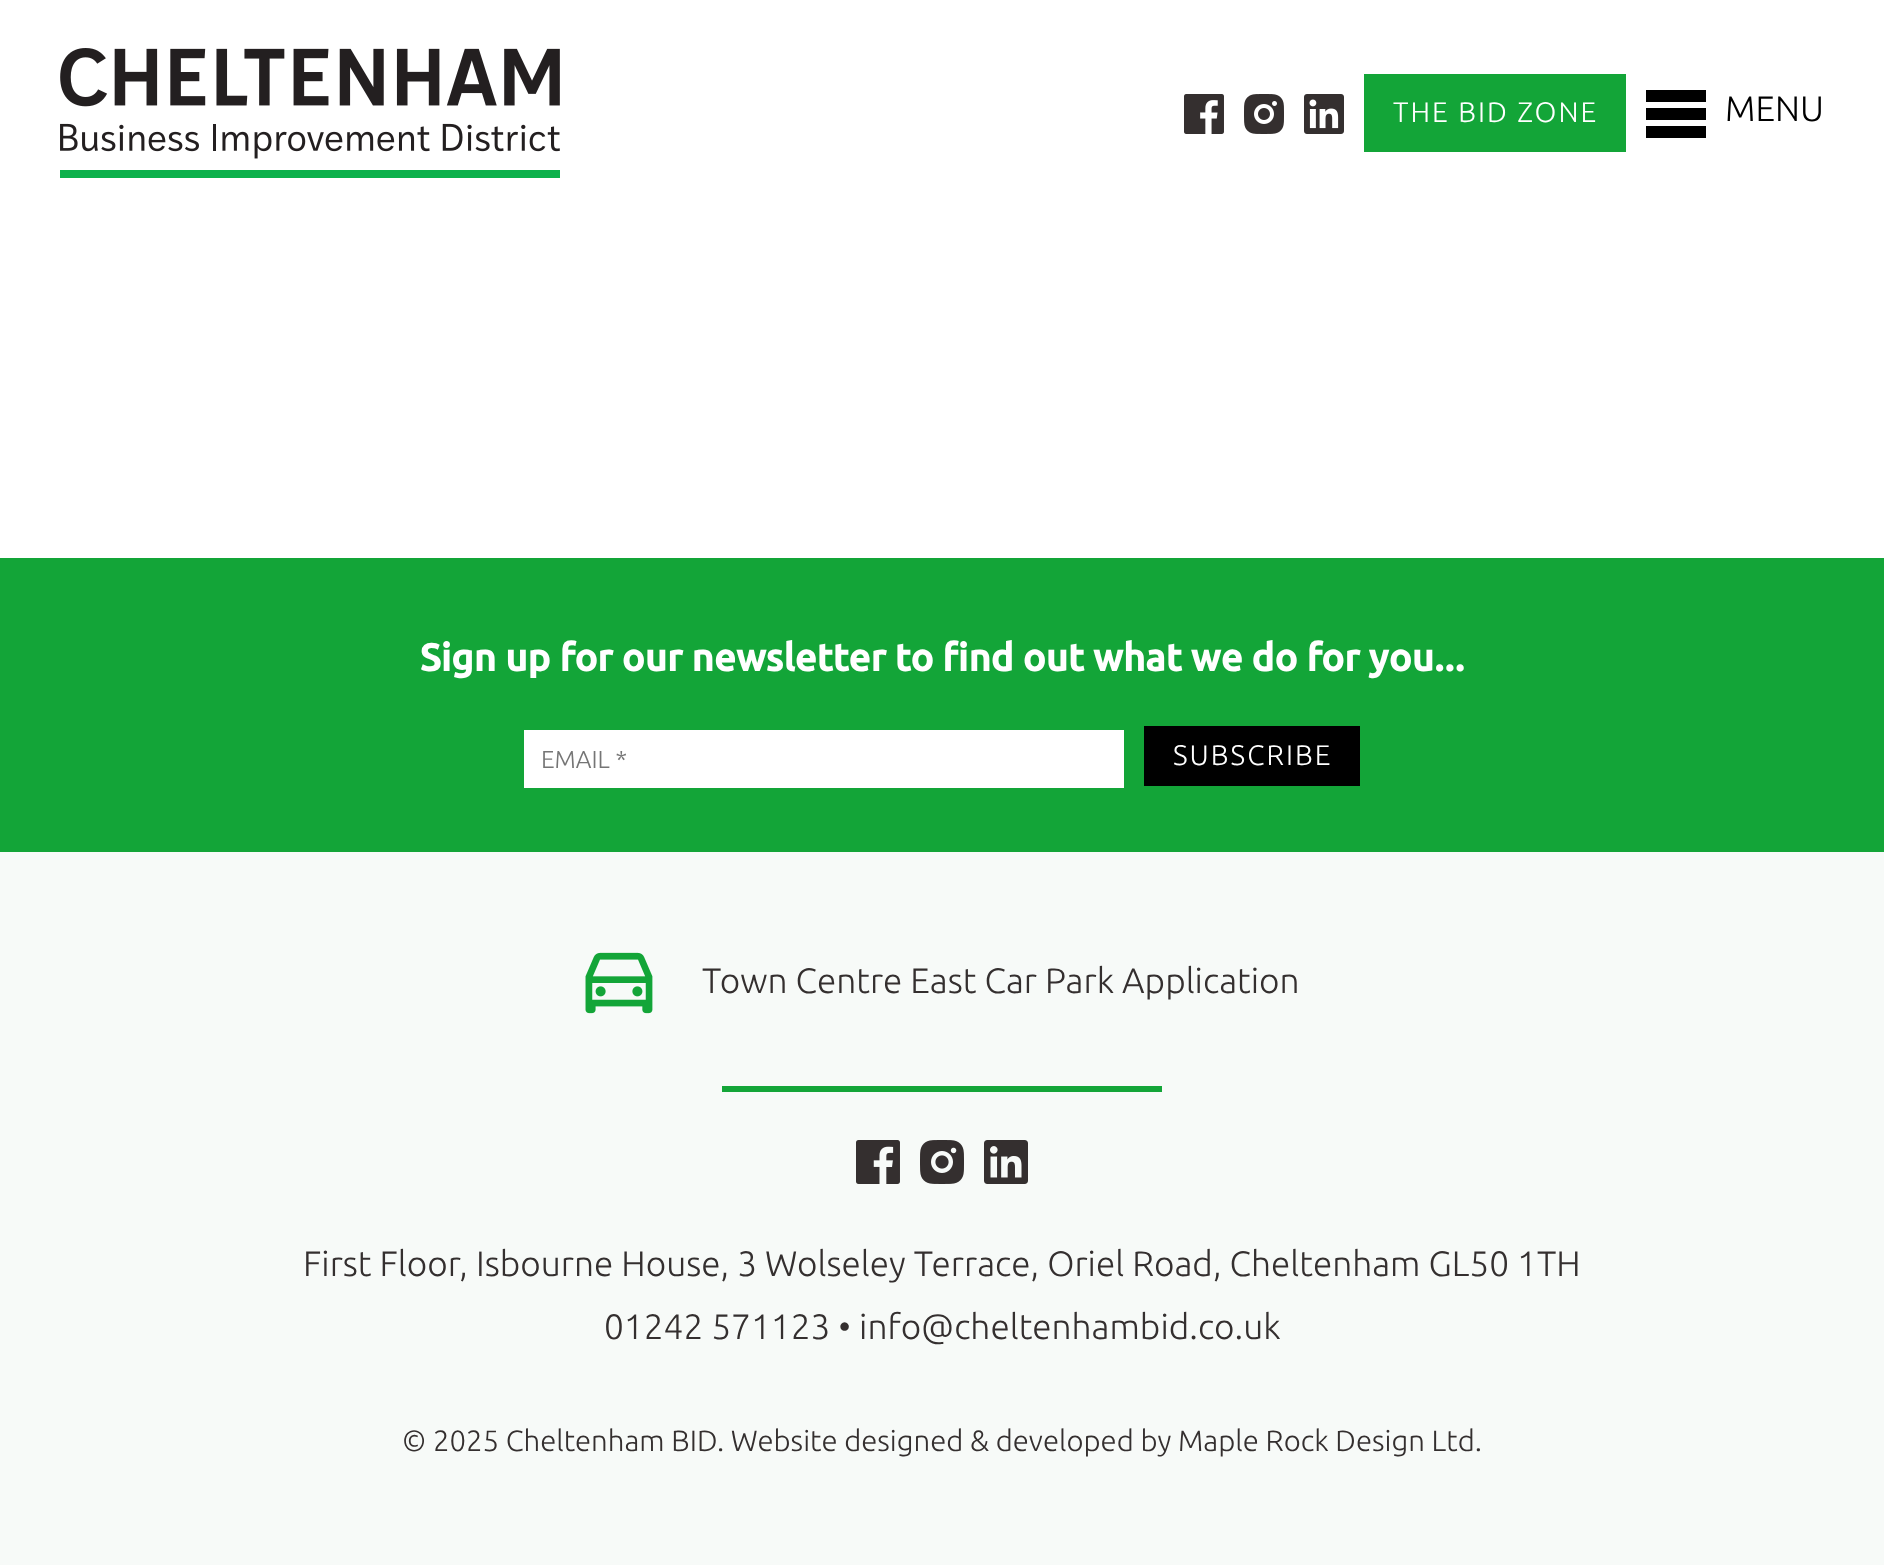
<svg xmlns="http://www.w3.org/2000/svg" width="1884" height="1565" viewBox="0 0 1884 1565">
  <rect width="100%" height="100%" fill="rgb(255,255,255)"/>
  <image x="60" y="48" width="500" height="130" href="pic1.png"/>
  <image x="1184" y="94" width="40" height="40" href="pic2.png"/>
  <image x="1244" y="94" width="40" height="40" href="pic3.png"/>
  <image x="1304" y="94" width="40" height="40" href="pic4.png"/>
  <rect x="1364" y="74" width="262" height="78" fill="rgb(19,165,56)"/>
  <text x="1393" y="122" font-family="Ubuntu" font-size="28.25" font-weight="300" letter-spacing="2" fill="rgb(255,255,255)">THE BID ZONE</text>
  <rect x="1646" y="90" width="60" height="12" fill="rgb(0,0,0)"/>
  <rect x="1646" y="108" width="60" height="12" fill="rgb(0,0,0)"/>
  <rect x="1646" y="126" width="60" height="12" fill="rgb(0,0,0)"/>
  <text x="1725" y="121" font-family="Ubuntu" font-size="35.2" font-weight="300" fill="rgb(0,0,0)">MENU</text>
  <rect x="0" y="852" width="1884" height="713" fill="rgb(247,250,248)"/>
  <rect x="0" y="558" width="1884" height="294" fill="rgb(19,165,56)"/>
  <text x="420" y="671" font-family="Ubuntu" font-size="38.4" font-weight="bold" fill="rgb(255,255,255)">Sign up for our newsletter to find out what we do for you...</text>
  <rect x="524" y="730" width="600" height="58" fill="rgb(255,255,255)"/>
  <text x="541" y="768" font-family="Ubuntu" font-size="24.5" font-weight="300" fill="rgb(117,117,117)">EMAIL *</text>
  <rect x="1144" y="726" width="216" height="60" fill="rgb(0,0,0)"/>
  <text x="1173" y="765" font-family="Ubuntu" font-size="28.25" font-weight="300" letter-spacing="2" fill="rgb(255,255,255)">SUBSCRIBE</text>
  <image x="585" y="952" width="68" height="62" href="pic5.png"/>
  <text x="702" y="993" font-family="Ubuntu" font-size="35.2" font-weight="300" fill="rgb(52,47,47)">Town Centre East Car Park Application</text>
  <rect x="722" y="1086" width="440" height="6" fill="rgb(19,165,56)"/>
  <image x="856" y="1140" width="44" height="44" href="pic6.png"/>
  <image x="920" y="1140" width="44" height="44" href="pic7.png"/>
  <image x="984" y="1140" width="44" height="44" href="pic8.png"/>
  <g font-family="Ubuntu" font-size="35.2" font-weight="300" fill="rgb(52,47,47)">
    <text x="303" y="1276">First Floor, Isbourne House, 3 Wolseley Terrace, Oriel Road, Cheltenham GL50 1TH</text>
    <text x="604" y="1339">01242 571123 • info@cheltenhambid.co.uk</text>
  </g>
  <g font-family="Ubuntu" font-size="29.3" font-weight="300" fill="rgb(52,47,47)">
    <text x="402" y="1451">© 2025 Cheltenham BID. Website designed &amp; developed by</text>
    <text x="1178" y="1451">Maple Rock Design Ltd.</text>
  </g>
</svg>
